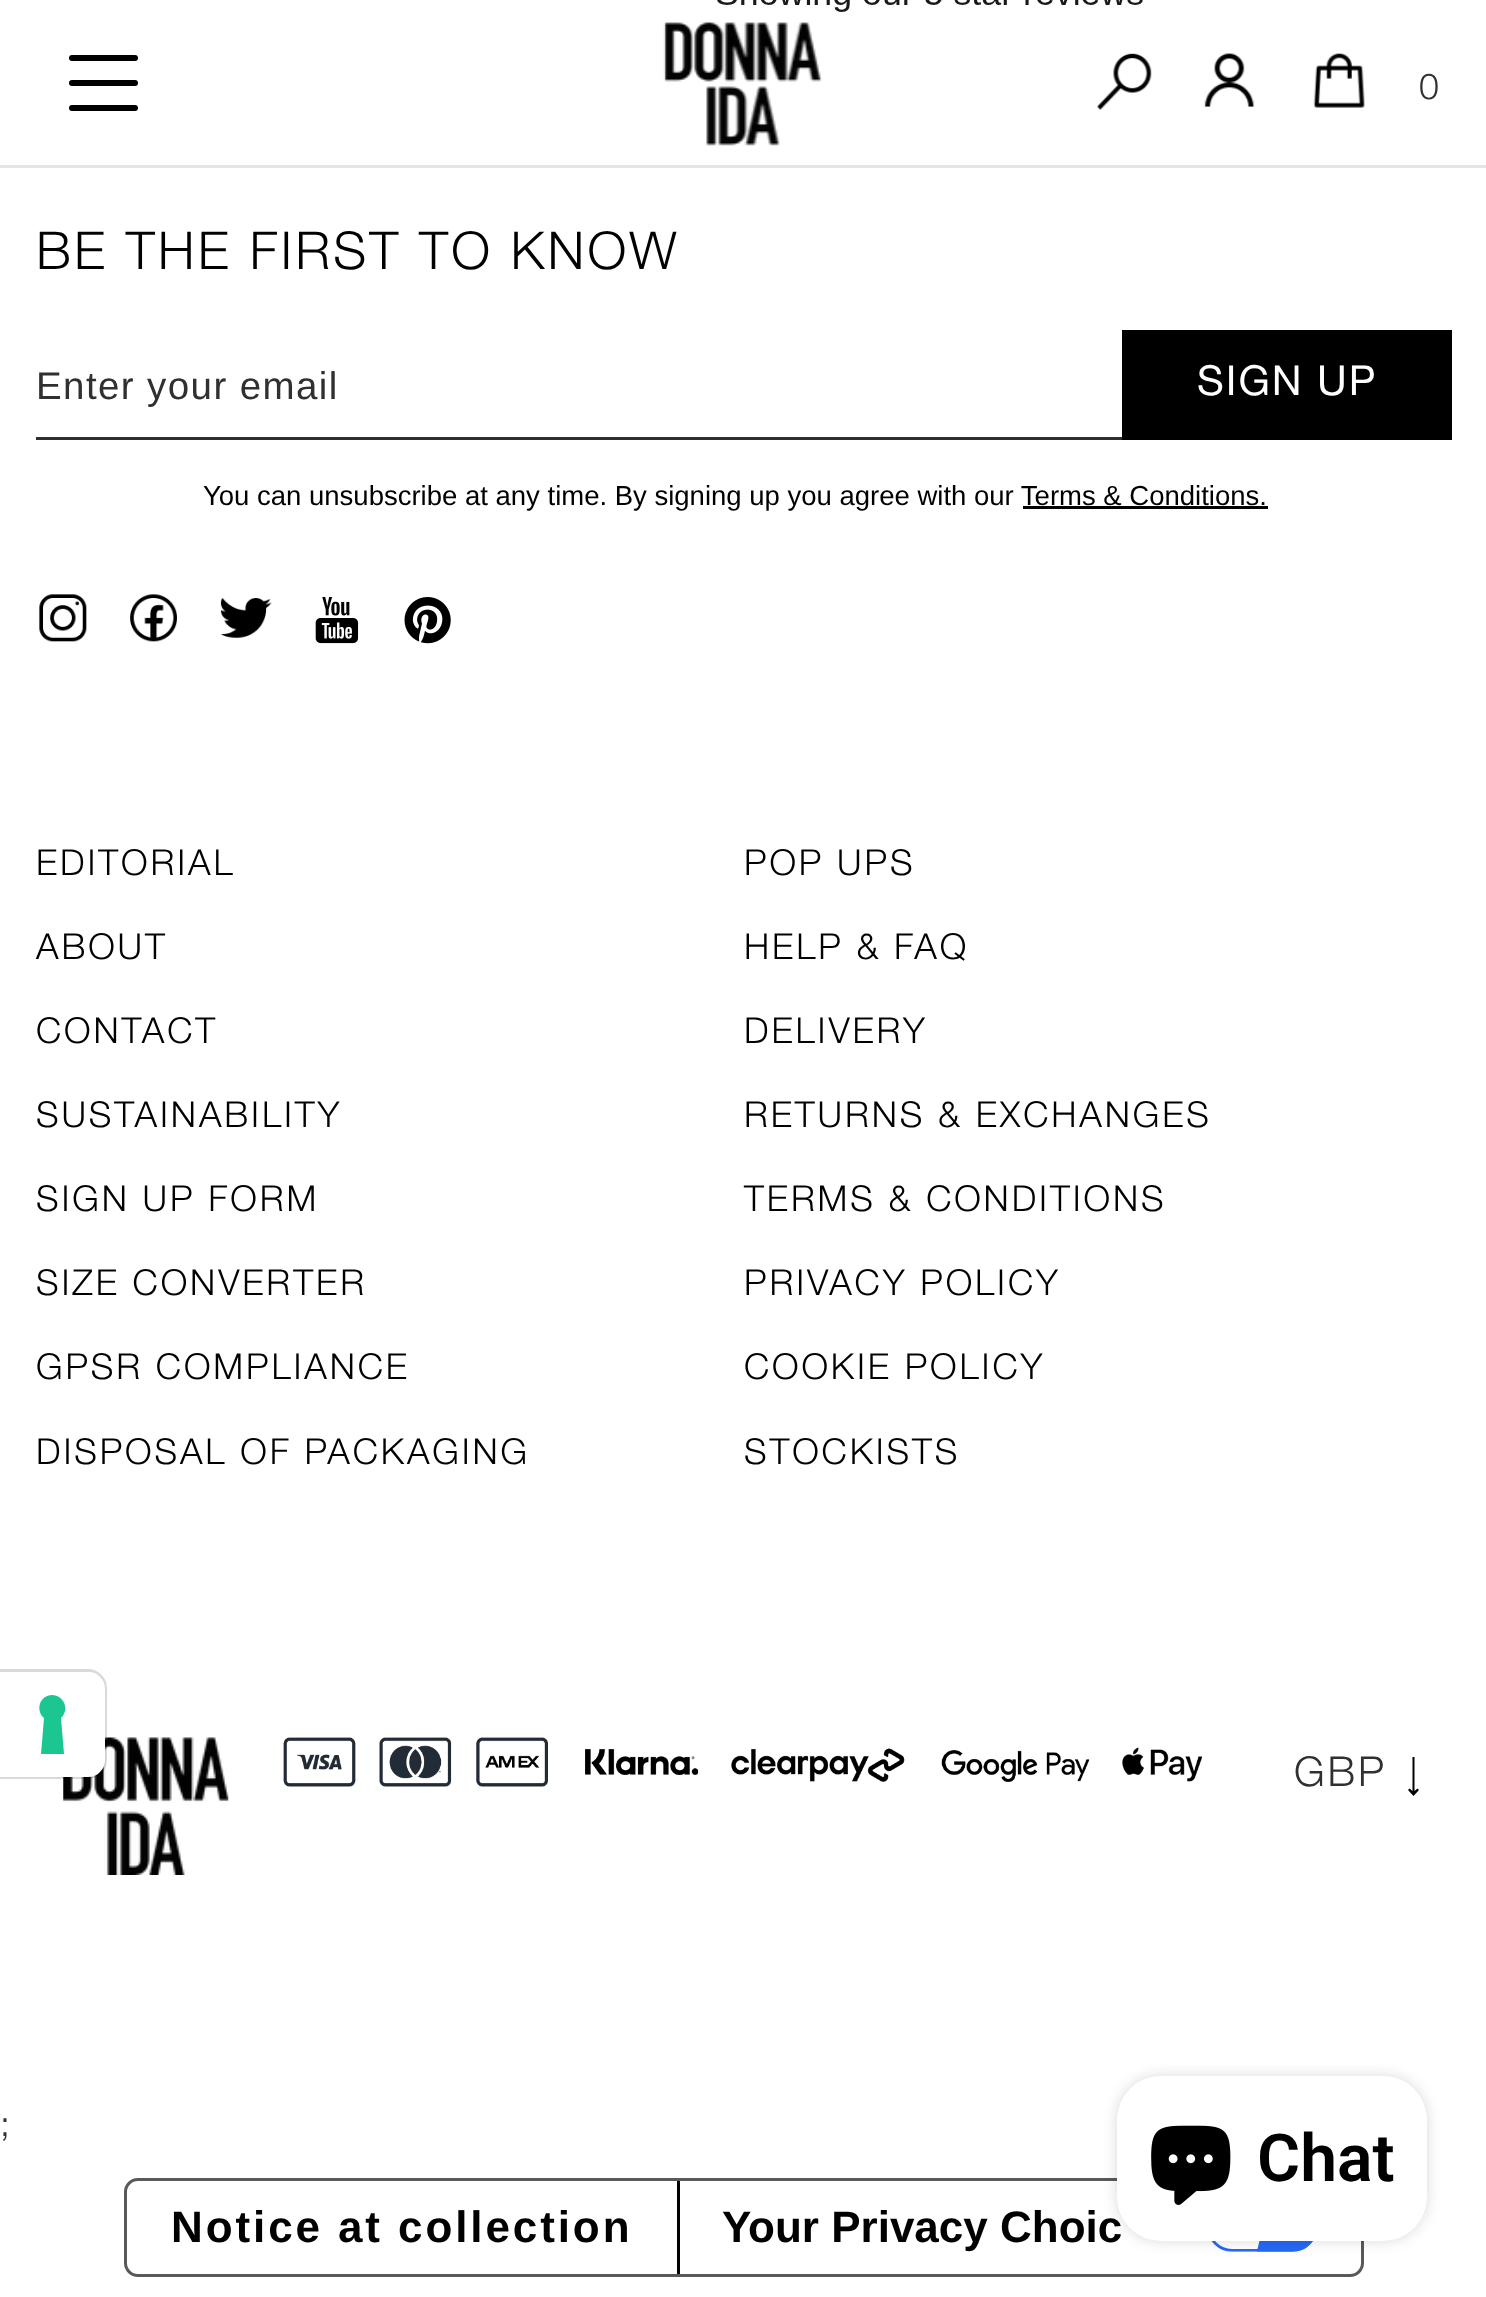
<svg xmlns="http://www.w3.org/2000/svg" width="1486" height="2297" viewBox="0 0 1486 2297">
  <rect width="100%" height="100%" fill="rgb(255,255,255)"/>
  <rect x="0" y="165" width="1486" height="3" fill="rgb(229,229,229)"/>
  <rect x="69" y="55" width="69" height="6" rx="3" fill="rgb(0,0,0)"/>
  <rect x="69" y="80" width="69" height="6" rx="3" fill="rgb(0,0,0)"/>
  <rect x="69" y="105" width="69" height="6" rx="3" fill="rgb(0,0,0)"/>
  <image x="663" y="21" width="159" height="125" href="pic1.png"/>
  <image x="1097" y="53" width="55" height="57" href="pic2.png"/>
  <image x="1204" y="53" width="51" height="54" href="pic3.png"/>
  <image x="1313" y="53" width="52" height="55" href="pic4.png"/>
  <text x="1419" y="99" font-family="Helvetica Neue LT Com" font-size="35.75" font-weight="300" letter-spacing="2.9" fill="rgb(48,48,48)">0</text>
  <image x="717" y="0" width="426" height="12" href="pic5.png"/>
  <text x="36" y="269" font-family="Helvetica Neue LT Com" font-size="52.25" font-weight="300" letter-spacing="3.1" fill="rgb(0,0,0)">BE THE FIRST TO KNOW</text>
  <rect x="36" y="437" width="1086" height="3" fill="rgb(48,48,48)"/>
  <text x="36" y="399" font-family="Liberation Sans" font-size="38.5" letter-spacing="1.4" fill="rgb(48,48,48)">Enter your email</text>
  <rect x="1122" y="330" width="330" height="110" fill="rgb(0,0,0)"/>
  <text x="1197" y="395" font-family="Helvetica Neue LT Com" font-size="41.25" letter-spacing="2" fill="rgb(255,255,255)">SIGN UP</text>
  <text x="203" y="505" font-family="Liberation Sans" font-size="27.5" fill="rgb(0,0,0)">You can unsubscribe at any time. By signing up you agree with our Terms &amp; Conditions.</text>
  <rect x="1023" y="506" width="245" height="3" fill="rgb(0,0,0)"/>
  <image x="39" y="594" width="48" height="48" href="pic6.png"/>
  <image x="130" y="594" width="47" height="48" href="pic7.png"/>
  <image x="220" y="598" width="52" height="40" href="pic8.png"/>
  <image x="315" y="597" width="44" height="47" href="pic9.png"/>
  <image x="404" y="597" width="47" height="47" href="pic10.png"/>
  <g font-family="Helvetica Neue LT Com" font-size="35.75" font-weight="300" letter-spacing="2.9" fill="rgb(0,0,0)">
    <text x="36" y="875">EDITORIAL</text>
    <text x="36" y="959">ABOUT</text>
    <text x="36" y="1043">CONTACT</text>
    <text x="36" y="1127">SUSTAINABILITY</text>
    <text x="36" y="1211">SIGN UP FORM</text>
    <text x="36" y="1295">SIZE CONVERTER</text>
    <text x="36" y="1379">GPSR COMPLIANCE</text>
    <text x="36" y="1464">DISPOSAL OF PACKAGING</text>
    <text x="744" y="875">POP UPS</text>
    <text x="744" y="959">HELP &amp; FAQ</text>
    <text x="744" y="1043">DELIVERY</text>
    <text x="744" y="1127">RETURNS &amp; EXCHANGES</text>
    <text x="744" y="1211">TERMS &amp; CONDITIONS</text>
    <text x="744" y="1295">PRIVACY POLICY</text>
    <text x="744" y="1379">COOKIE POLICY</text>
    <text x="744" y="1464">STOCKISTS</text>
  </g>
  <image x="63" y="1737" width="166" height="138" href="pic11.png"/>
  <image x="283" y="1737" width="919" height="50" href="pic12.png"/>
  <path d="M1419 1790L1417.5 1788.5L1414.5 1791V1757H1412.5V1791L1409.5 1788.5L1408 1790L1413.5 1796Z" fill="rgb(0,0,0)"/>
  <text x="1294" y="1786" font-family="Helvetica Neue LT Com" font-size="41.25" font-weight="300" letter-spacing="3" fill="rgb(48,48,48)">GBP</text>
  <path d="M-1.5 1670.5H88C97.5 1670.5 105.5 1678.5 105.5 1688V1760C105.5 1769.5 97.5 1777.5 88 1777.5H-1.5Z" fill="none" stroke="rgba(0,0,0,0.15)" stroke-width="3"/>
  <path d="M0 1672H88C97.5 1672 105 1679.5 105 1689V1760C105 1769.5 97.5 1777 88 1777H0Z" fill="rgb(255,255,255)"/>
  <path d="M52 1695C64 1695 70 1710 61 1718L64 1754H41L44 1718C35 1710 40 1695 52 1695Z" fill="rgb(28,198,145)" fill-rule="evenodd"/>
  <text x="0" y="2136" font-family="Helvetica Neue LT Com" font-size="35.75" font-weight="300" letter-spacing="2.9" fill="rgb(48,48,48)">;</text>
  <rect x="125.5" y="2179.5" width="1237" height="96" rx="12.5" fill="none" stroke="rgb(89,89,89)" stroke-width="3"/>
  <image x="1211" y="2241" width="102" height="11" href="pic14.png"/>
  <rect x="1117" y="2076" width="310" height="165" rx="44" fill="rgba(0,0,0,0.15)" filter="blur(7px)"/>
  <text x="722" y="2242" font-family="Liberation Sans" font-size="44" font-weight="bold" fill="rgb(0,0,0)">Your Privacy Choic</text>
  <rect x="1117" y="2076" width="310" height="165" rx="44" fill="rgb(255,255,255)"/>
  <image x="1151" y="2125" width="80" height="80" href="pic13.png"/>
  <text x="1257" y="2181" font-family="Roboto" font-size="66" font-weight="600" fill="rgb(0,0,0)">Chat</text>
  <text x="171" y="2242" font-family="Liberation Sans" font-size="44" font-weight="bold" letter-spacing="2.9" fill="rgb(0,0,0)">Notice at collection</text>
  <rect x="677" y="2181" width="3" height="93" fill="rgb(0,0,0)"/>
</svg>
